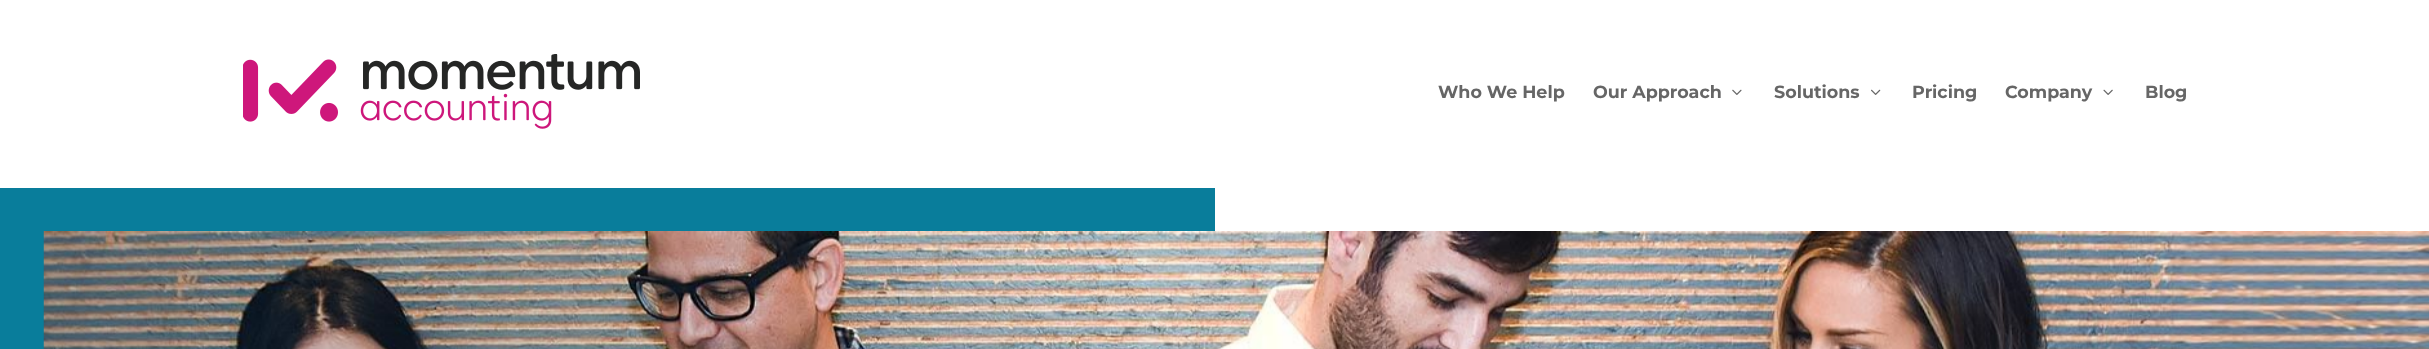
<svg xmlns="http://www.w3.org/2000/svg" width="2429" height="349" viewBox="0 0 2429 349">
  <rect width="100%" height="100%" fill="rgb(255,255,255)"/>
  <image x="243" y="54" width="397" height="75" href="pic1.png"/>
  <g font-family="Montserrat" font-size="17.5" font-weight="100" fill="rgb(102,102,102)">
    <text x="1438" y="98">Who We Help</text>
    <text x="1593" y="98">Our Approach</text>
  </g>
  <image x="1732" y="89" width="10" height="6" href="pic2.png"/>
  <text x="1774" y="98" font-family="Montserrat" font-size="17.5" font-weight="100" fill="rgb(102,102,102)">Solutions</text>
  <image x="1871" y="89" width="10" height="6" href="pic3.png"/>
  <g font-family="Montserrat" font-size="17.5" font-weight="100" fill="rgb(102,102,102)">
    <text x="1912" y="98">Pricing</text>
    <text x="2005" y="98">Company</text>
  </g>
  <image x="2103" y="89" width="10" height="6" href="pic4.png"/>
  <text x="2145" y="98" font-family="Montserrat" font-size="17.5" font-weight="100" fill="rgb(102,102,102)">Blog</text>
  <rect x="0" y="188" width="1215" height="43" fill="rgb(9,125,155)"/>
  <rect x="0" y="231" width="44" height="118" fill="rgb(9,125,155)"/>
  <image x="43" y="231" width="2386" height="118" href="pic5.png"/>
</svg>
